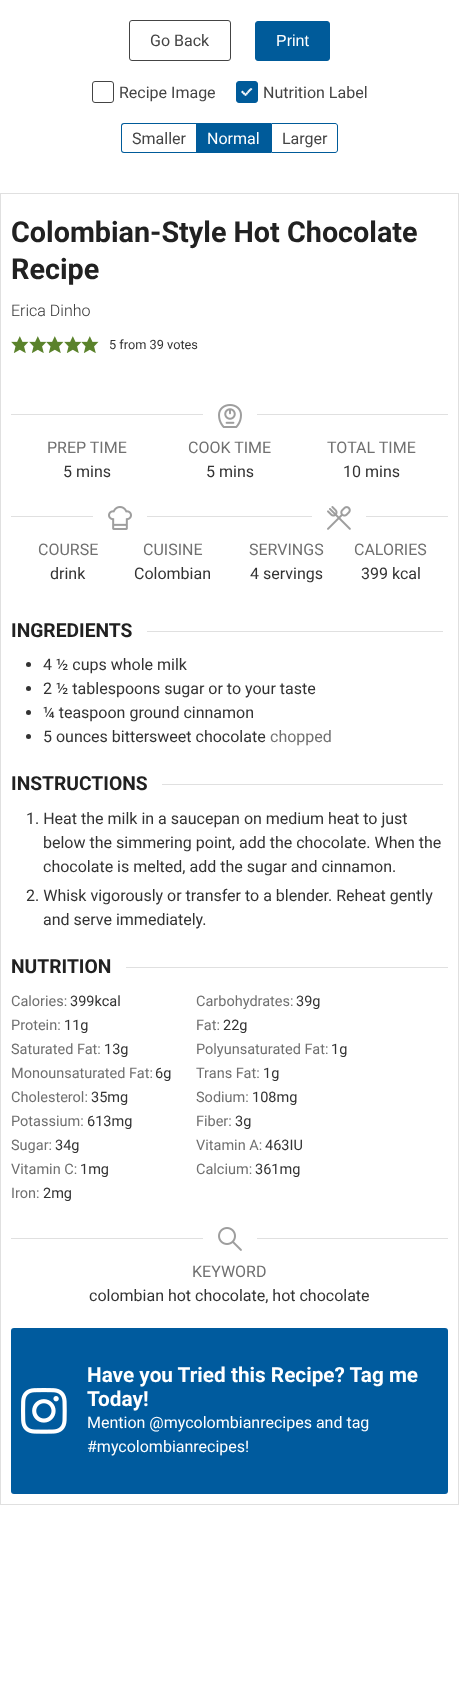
<svg xmlns="http://www.w3.org/2000/svg" width="459" height="1695" viewBox="0 0 459 1695">
  <rect width="100%" height="100%" fill="rgb(255,255,255)"/>
  <rect x="129.5" y="20.5" width="101" height="40" rx="2.5" fill="none" stroke="rgb(68,68,68)"/>
  <text x="150" y="46" font-family="Roboto" font-size="16" fill="rgb(68,68,68)">Go Back</text>
  <rect x="255.5" y="21.5" width="74" height="39" rx="2.5" fill="rgb(0,91,154)" stroke="rgb(0,91,154)"/>
  <text x="276" y="46" font-family="Liberation Sans" font-size="16" fill="rgb(255,255,255)">Print</text>
  <rect x="92.5" y="81.5" width="21" height="21" rx="2.5" fill="none" stroke="rgb(68,68,68)"/>
  <text x="119" y="98" font-family="Roboto" font-size="16" fill="rgb(68,68,68)">Recipe Image</text>
  <rect x="236.5" y="81.5" width="21" height="21" rx="2.5" fill="rgb(0,91,154)" stroke="rgb(0,91,154)"/>
  <text x="263" y="98" font-family="Roboto" font-size="16" fill="rgb(68,68,68)">Nutrition Label</text>
  <path d="M251 88L252.5 89L251 90.5L249.5 89Z" fill="rgb(255,255,255)"/>
  <path d="M249.5 89L251 90.5L249.5 92L248 90.5Z" fill="rgb(255,255,255)"/>
  <path d="M248 90.5L249.5 92L248 93.5L247 92Z" fill="rgb(255,255,255)"/>
  <path d="M247 92L248 93.5L247 95L245.5 93.5Z" fill="rgb(255,255,255)"/>
  <path d="M245.5 93.5L247 95L245.5 96L244 95Z" fill="rgb(255,255,255)"/>
  <path d="M244 92L245.5 93.5L244 95L242.5 93.5Z" fill="rgb(255,255,255)"/>
  <path d="M242.5 90.5L244 92L242.5 93.5L241 92Z" fill="rgb(255,255,255)"/>
  <path d="M124 123H196V153H124C122 153 121 152 121 150V126C121 124 122 123 124 123ZM124 124H196V152H124C123 152 122 151 122 150V126C122 125 123 124 124 124Z" fill="rgb(0,91,154)" fill-rule="evenodd"/>
  <text x="132" y="144" font-family="Roboto" font-size="16" fill="rgb(68,68,68)">Smaller</text>
  <rect x="196" y="123" width="75" height="30" fill="rgb(0,91,154)"/>
  <text x="207" y="144" font-family="Roboto" font-size="16" fill="rgb(255,255,255)">Normal</text>
  <path d="M271.5 123.5H335C336.5 123.5 337.5 124.5 337.5 126V150C337.5 151.5 336.5 152.5 335 152.5H271.5Z" fill="none" stroke="rgb(0,91,154)"/>
  <text x="282" y="144" font-family="Roboto" font-size="16" fill="rgb(68,68,68)">Larger</text>
  <rect x="0.5" y="193.5" width="458" height="1311" fill="none" stroke="rgb(224,224,224)"/>
  <g font-family="Roboto" font-size="28.75" font-weight="bold" fill="rgb(33,33,33)">
    <text>
      <tspan x="11" y="242">Colombian-Style Hot Chocolate</tspan>
      <tspan x="11" y="279">Recipe</tspan>
    </text>
  </g>
  <text x="11" y="316" font-family="Roboto" font-size="16" font-weight="300" fill="rgb(51,51,51)">Erica Dinho</text>
  <image x="11" y="336" width="18" height="17" href="pic1.png"/>
  <image x="29" y="336" width="17" height="17" href="pic2.png"/>
  <image x="46" y="336" width="18" height="17" href="pic1.png"/>
  <image x="64" y="336" width="17" height="17" href="pic2.png"/>
  <image x="81" y="336" width="18" height="17" href="pic1.png"/>
  <text x="109" y="349" font-family="Roboto" font-size="12.75" fill="rgb(51,51,51)">5 from 39 votes</text>
  <rect x="11" y="414" width="192" height="1" fill="rgb(224,224,224)"/>
  <image x="218" y="404" width="24" height="24" href="pic3.png"/>
  <rect x="257" y="414" width="191" height="1" fill="rgb(224,224,224)"/>
  <text x="47" y="453" font-family="Roboto" font-size="16" fill="rgb(112,112,112)">PREP TIME</text>
  <text x="63" y="477" font-family="Roboto" font-size="16" fill="rgb(51,51,51)">5 mins</text>
  <text x="188" y="453" font-family="Roboto" font-size="16" fill="rgb(112,112,112)">COOK TIME</text>
  <text x="206" y="477" font-family="Roboto" font-size="16" fill="rgb(51,51,51)">5 mins</text>
  <text x="327" y="453" font-family="Roboto" font-size="16" fill="rgb(112,112,112)">TOTAL TIME</text>
  <text x="343" y="477" font-family="Roboto" font-size="16" fill="rgb(51,51,51)">10 mins</text>
  <rect x="11" y="516" width="82" height="1" fill="rgb(224,224,224)"/>
  <image x="108" y="506" width="24" height="24" href="pic4.png"/>
  <rect x="147" y="516" width="165" height="1" fill="rgb(224,224,224)"/>
  <text x="38" y="555" font-family="Roboto" font-size="16" fill="rgb(112,112,112)">COURSE</text>
  <text x="50" y="579" font-family="Roboto" font-size="16" fill="rgb(51,51,51)">drink</text>
  <text x="143" y="555" font-family="Roboto" font-size="16" fill="rgb(112,112,112)">CUISINE</text>
  <text x="134" y="579" font-family="Roboto" font-size="16" fill="rgb(51,51,51)">Colombian</text>
  <image x="327" y="506" width="24" height="24" href="pic5.png"/>
  <rect x="366" y="516" width="82" height="1" fill="rgb(224,224,224)"/>
  <text x="249" y="555" font-family="Roboto" font-size="16" fill="rgb(112,112,112)">SERVINGS</text>
  <text x="250" y="579" font-family="Roboto" font-size="16" fill="rgb(51,51,51)">4 servings</text>
  <text x="354" y="555" font-family="Roboto" font-size="16" fill="rgb(112,112,112)">CALORIES</text>
  <text x="361" y="579" font-family="Roboto" font-size="16" fill="rgb(51,51,51)">399 kcal</text>
  <text x="11" y="637" font-family="Roboto" font-size="19.25" font-weight="bold" fill="rgb(33,33,33)">INGREDIENTS</text>
  <rect x="147" y="631" width="296" height="1" fill="rgb(224,224,224)"/>
  <circle cx="28.5" cy="664.5" r="2.5" fill="rgb(51,51,51)"/>
  <text x="43" y="670" font-family="Roboto" font-size="16" fill="rgb(51,51,51)">4 ½ cups whole milk</text>
  <circle cx="28.5" cy="688.5" r="2.5" fill="rgb(51,51,51)"/>
  <text x="43" y="694" font-family="Roboto" font-size="16" fill="rgb(51,51,51)">2 ½ tablespoons sugar or to your taste</text>
  <circle cx="28.5" cy="712.5" r="2.5" fill="rgb(51,51,51)"/>
  <text x="43" y="718" font-family="Roboto" font-size="16" fill="rgb(51,51,51)">¼ teaspoon ground cinnamon</text>
  <circle cx="28.5" cy="736.5" r="2.5" fill="rgb(51,51,51)"/>
  <text x="43" y="742" font-family="Roboto" font-size="16" fill="rgb(51,51,51)">5 ounces bittersweet chocolate</text>
  <text x="270" y="742" font-family="Roboto" font-size="16" fill="rgb(112,112,112)">chopped</text>
  <text x="11" y="790" font-family="Roboto" font-size="19.25" font-weight="bold" fill="rgb(33,33,33)">INSTRUCTIONS</text>
  <rect x="162" y="784" width="281" height="1" fill="rgb(224,224,224)"/>
  <g font-family="Roboto" font-size="16" fill="rgb(51,51,51)">
    <text x="26" y="824">1. Heat the milk in a saucepan on medium heat to just</text>
    <text>
      <tspan x="43" y="848">below the simmering point, add the chocolate. When the</tspan>
      <tspan x="43" y="872">chocolate is melted, add the sugar and cinnamon.</tspan>
    </text>
    <text x="26" y="901">2. Whisk vigorously or transfer to a blender. Reheat gently</text>
    <text x="43" y="925">and serve immediately.</text>
  </g>
  <text x="11" y="973" font-family="Roboto" font-size="19.25" font-weight="bold" fill="rgb(33,33,33)">NUTRITION</text>
  <rect x="126" y="967" width="322" height="1" fill="rgb(224,224,224)"/>
  <text x="11" y="1006" font-family="Roboto" font-size="14.5" fill="rgb(112,112,112)">Calories:</text>
  <text x="70" y="1006" font-family="Roboto" font-size="14.5" fill="rgb(51,51,51)">399kcal</text>
  <text x="196" y="1006" font-family="Roboto" font-size="14.5" fill="rgb(112,112,112)">Carbohydrates:</text>
  <text x="296" y="1006" font-family="Roboto" font-size="14.5" fill="rgb(51,51,51)">39g</text>
  <text x="11" y="1030" font-family="Roboto" font-size="14.5" fill="rgb(112,112,112)">Protein:</text>
  <text x="64" y="1030" font-family="Roboto" font-size="14.5" fill="rgb(51,51,51)">11g</text>
  <text x="196" y="1030" font-family="Roboto" font-size="14.5" fill="rgb(112,112,112)">Fat:</text>
  <text x="223" y="1030" font-family="Roboto" font-size="14.5" fill="rgb(51,51,51)">22g</text>
  <text x="11" y="1054" font-family="Roboto" font-size="14.5" fill="rgb(112,112,112)">Saturated Fat:</text>
  <text x="104" y="1054" font-family="Roboto" font-size="14.5" fill="rgb(51,51,51)">13g</text>
  <text x="196" y="1054" font-family="Roboto" font-size="14.5" fill="rgb(112,112,112)">Polyunsaturated Fat:</text>
  <text x="331" y="1054" font-family="Roboto" font-size="14.5" fill="rgb(51,51,51)">1g</text>
  <text x="11" y="1078" font-family="Roboto" font-size="14.5" fill="rgb(112,112,112)">Monounsaturated Fat:</text>
  <text x="155" y="1078" font-family="Roboto" font-size="14.5" fill="rgb(51,51,51)">6g</text>
  <text x="196" y="1078" font-family="Roboto" font-size="14.5" fill="rgb(112,112,112)">Trans Fat:</text>
  <text x="263" y="1078" font-family="Roboto" font-size="14.5" fill="rgb(51,51,51)">1g</text>
  <text x="11" y="1102" font-family="Roboto" font-size="14.5" fill="rgb(112,112,112)">Cholesterol:</text>
  <text x="91" y="1102" font-family="Roboto" font-size="14.5" fill="rgb(51,51,51)">35mg</text>
  <text x="196" y="1102" font-family="Roboto" font-size="14.5" fill="rgb(112,112,112)">Sodium:</text>
  <text x="252" y="1102" font-family="Roboto" font-size="14.5" fill="rgb(51,51,51)">108mg</text>
  <text x="11" y="1126" font-family="Roboto" font-size="14.5" fill="rgb(112,112,112)">Potassium:</text>
  <text x="87" y="1126" font-family="Roboto" font-size="14.5" fill="rgb(51,51,51)">613mg</text>
  <text x="196" y="1126" font-family="Roboto" font-size="14.5" fill="rgb(112,112,112)">Fiber:</text>
  <text x="235" y="1126" font-family="Roboto" font-size="14.5" fill="rgb(51,51,51)">3g</text>
  <text x="11" y="1150" font-family="Roboto" font-size="14.5" fill="rgb(112,112,112)">Sugar:</text>
  <text x="55" y="1150" font-family="Roboto" font-size="14.5" fill="rgb(51,51,51)">34g</text>
  <text x="196" y="1150" font-family="Roboto" font-size="14.5" fill="rgb(112,112,112)">Vitamin A:</text>
  <text x="265" y="1150" font-family="Roboto" font-size="14.5" fill="rgb(51,51,51)">463IU</text>
  <text x="11" y="1174" font-family="Roboto" font-size="14.5" fill="rgb(112,112,112)">Vitamin C:</text>
  <text x="80" y="1174" font-family="Roboto" font-size="14.5" fill="rgb(51,51,51)">1mg</text>
  <text x="196" y="1174" font-family="Roboto" font-size="14.5" fill="rgb(112,112,112)">Calcium:</text>
  <text x="255" y="1174" font-family="Roboto" font-size="14.5" fill="rgb(51,51,51)">361mg</text>
  <text x="11" y="1198" font-family="Roboto" font-size="14.5" fill="rgb(112,112,112)">Iron:</text>
  <text x="43" y="1198" font-family="Roboto" font-size="14.5" fill="rgb(51,51,51)">2mg</text>
  <rect x="11" y="1238" width="192" height="1" fill="rgb(224,224,224)"/>
  <image x="218" y="1227" width="24" height="24" href="pic6.png"/>
  <rect x="257" y="1238" width="191" height="1" fill="rgb(224,224,224)"/>
  <text x="192" y="1277" font-family="Roboto" font-size="16" fill="rgb(112,112,112)">KEYWORD</text>
  <text x="89" y="1301" font-family="Roboto" font-size="16" fill="rgb(51,51,51)">colombian hot chocolate, hot chocolate</text>
  <rect x="11" y="1328" width="437" height="166" rx="3" fill="rgb(0,91,158)"/>
  <image x="21" y="1388" width="46" height="46" href="pic7.png"/>
  <g font-family="Roboto" font-size="20.75" font-weight="bold" fill="rgb(255,255,255)">
    <text>
      <tspan x="87" y="1382">Have you Tried this Recipe? Tag me</tspan>
      <tspan x="87" y="1406">Today!</tspan>
    </text>
  </g>
  <g font-family="Roboto" font-size="16" fill="rgb(255,255,255)">
    <text>
      <tspan x="87" y="1428">Mention @mycolombianrecipes and tag</tspan>
      <tspan x="87" y="1452">#mycolombianrecipes!</tspan>
    </text>
  </g>
</svg>
